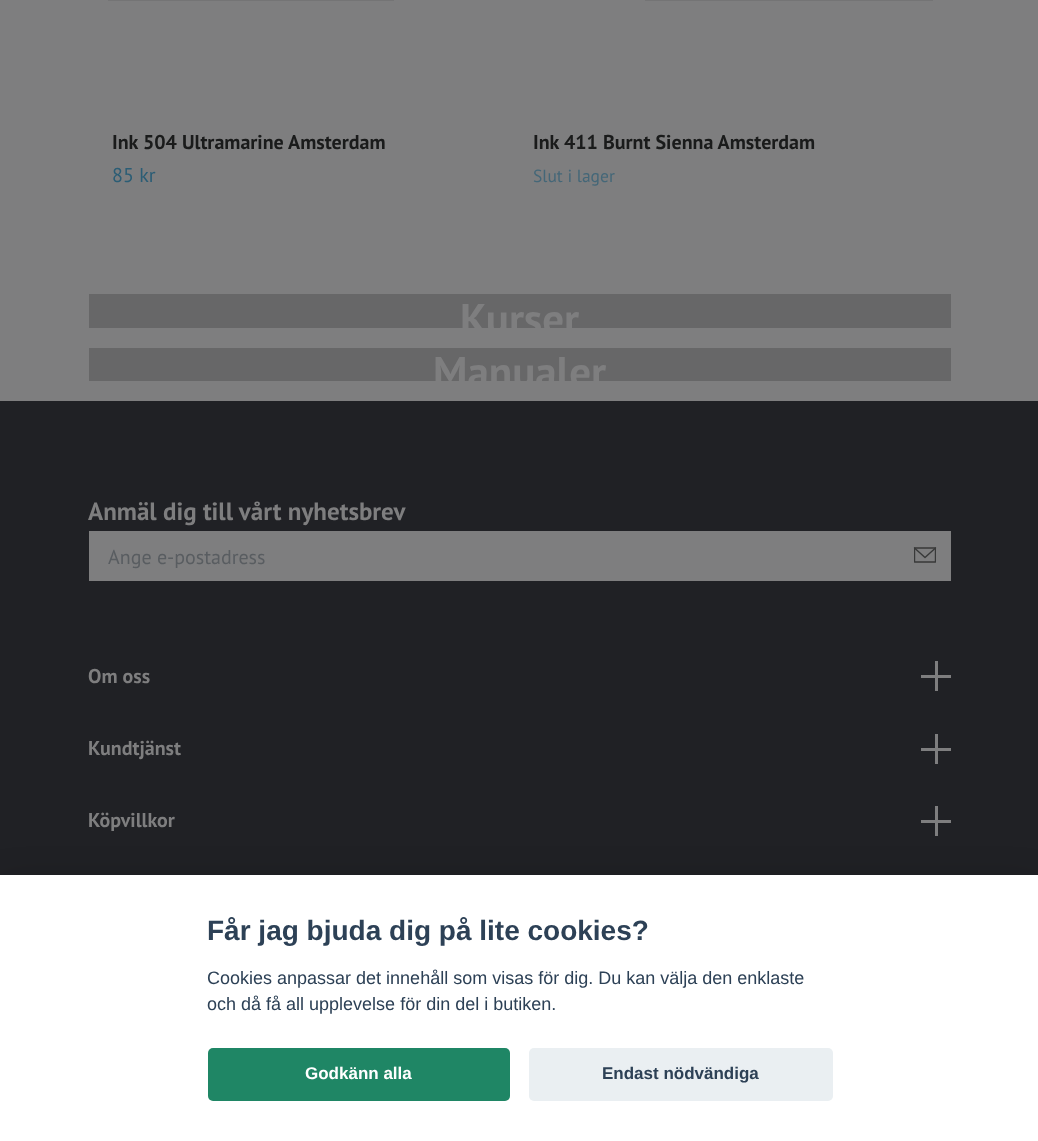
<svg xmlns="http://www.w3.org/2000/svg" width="1038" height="1141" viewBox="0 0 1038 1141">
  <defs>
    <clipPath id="clip1"><rect x="89" y="294" width="862" height="34"/></clipPath>
    <clipPath id="clip2"><rect x="89" y="348" width="862" height="33"/></clipPath>
    <clipPath id="clip3"><rect x="914" y="544" width="22" height="22"/></clipPath>
  </defs>
  <rect width="100%" height="100%" fill="rgb(126,126,127)"/>
  <rect x="108" y="0" width="825" height="1" fill="rgb(116,116,117)"/>
  <rect x="394" y="0" width="251" height="1" fill="rgb(126,126,127)"/>
  <text x="112" y="149" font-family="PT Sans" font-size="20" font-weight="bold" fill="rgb(26,27,27)">Ink 504 Ultramarine Amsterdam</text>
  <text x="112" y="182" font-family="PT Sans" font-size="20" fill="rgb(43,93,117)">85 kr</text>
  <text x="533" y="149" font-family="PT Sans" font-size="20" font-weight="bold" fill="rgb(26,27,27)">Ink 411 Burnt Sienna Amsterdam</text>
  <text x="533" y="182" font-family="PT Sans" font-size="17.5" fill="rgb(68,103,120)">Slut i lager</text>
  <rect x="89" y="294" width="862" height="34" fill="rgb(103,103,104)"/>
  <g clip-path="url(#clip1)">
    <text x="460" y="334" font-family="PT Sans" font-size="43" font-weight="bold" fill="rgb(126,126,127)">Kurser</text>
  </g>
  <rect x="89" y="348" width="862" height="33" fill="rgb(103,103,104)"/>
  <g clip-path="url(#clip2)">
    <text x="433" y="387" font-family="PT Sans" font-size="43" font-weight="bold" fill="rgb(126,126,127)">Manualer</text>
  </g>
  <rect x="0" y="401" width="1038" height="474" fill="rgb(32,33,37)"/>
  <text x="88" y="520" font-family="PT Sans" font-size="25" font-weight="bold" fill="rgb(126,126,127)">Anmäl dig till vårt nyhetsbrev</text>
  <rect x="89" y="531" width="862" height="50" fill="rgb(126,126,127)"/>
  <text x="108" y="564" font-family="PT Sans" font-size="20" fill="rgb(89,93,97)">Ange e-postadress</text>
  <path d="M914.5 548L925 557.5L935.5 548" fill="none" stroke="rgb(56,57,57)" stroke-width="1.4" stroke-linecap="round" stroke-linejoin="round"/>
  <g clip-path="url(#clip3)">
    <path d="M914.5 548H935.5V562H914.5Z" fill="none" stroke="rgb(56,57,57)" stroke-width="1.4" stroke-linecap="round" stroke-linejoin="round"/>
  </g>
  <text x="88" y="683" font-family="PT Sans" font-size="20" font-weight="bold" fill="rgb(126,126,127)">Om oss</text>
  <rect x="935" y="661" width="3" height="30" fill="rgb(126,126,127)"/>
  <rect x="921" y="675" width="30" height="3" fill="rgb(126,126,127)"/>
  <text x="88" y="755" font-family="PT Sans" font-size="20" font-weight="bold" fill="rgb(126,126,127)">Kundtjänst</text>
  <rect x="935" y="734" width="3" height="30" fill="rgb(126,126,127)"/>
  <rect x="921" y="748" width="30" height="3" fill="rgb(126,126,127)"/>
  <text x="88" y="827" font-family="PT Sans" font-size="20" font-weight="bold" fill="rgb(126,126,127)">Köpvillkor</text>
  <rect x="935" y="806" width="3" height="30" fill="rgb(126,126,127)"/>
  <rect x="921" y="820" width="30" height="3" fill="rgb(126,126,127)"/>
  <rect x="0" y="888" width="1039" height="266" fill="rgba(2,2,3,0.28)" filter="blur(19px)"/>
  <rect x="0" y="875" width="1038" height="266" fill="rgb(255,255,255)"/>
  <text x="207" y="940" font-family="Liberation Sans" font-size="28" font-weight="bold" fill="rgb(45,65,86)">Får jag bjuda dig på lite cookies?</text>
  <g font-family="Liberation Sans" font-size="18" fill="rgb(45,65,86)">
    <text>
      <tspan x="207" y="984">Cookies anpassar det innehåll som visas för dig. Du kan välja den enklaste</tspan>
      <tspan x="207" y="1010">och då få all upplevelse för din del i butiken.</tspan>
    </text>
  </g>
  <rect x="208" y="1048" width="302" height="53" rx="5" fill="rgb(31,134,101)"/>
  <text x="305" y="1079" font-family="Liberation Sans" font-size="17" font-weight="bold" fill="rgb(255,255,255)">Godkänn alla</text>
  <rect x="529" y="1048" width="304" height="53" rx="5" fill="rgb(234,239,242)"/>
  <text x="602" y="1079" font-family="Liberation Sans" font-size="17" font-weight="bold" fill="rgb(45,65,86)">Endast nödvändiga</text>
</svg>
